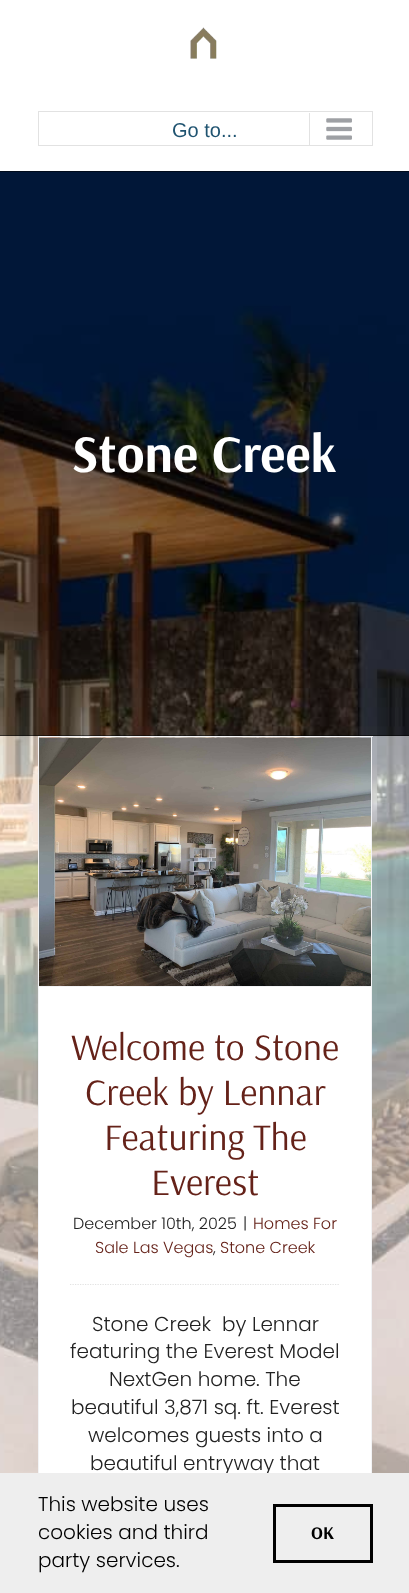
<svg xmlns="http://www.w3.org/2000/svg" width="409" height="1593" viewBox="0 0 409 1593">
  <rect width="100%" height="100%" fill="rgb(255,255,255)"/>
  <image x="0" y="172" width="409" height="1301" href="pic1.png"/>
  <image x="190" y="27" width="27" height="32" href="pic2.png"/>
  <rect x="38.5" y="111.5" width="334" height="34" fill="none" stroke="rgb(226,226,226)"/>
  <text x="172" y="137" font-family="Liberation Sans" font-size="20" fill="rgb(31,83,112)">Go to...</text>
  <rect x="309" y="113" width="1" height="32" fill="rgb(226,226,226)"/>
  <image x="326" y="118" width="26" height="22" href="pic3.png"/>
  <rect x="0" y="172" width="409" height="564" fill="rgba(0,0,0,0.5)"/>
  <rect x="0" y="171" width="409" height="1" fill="rgb(1,12,28)"/>
  <rect x="0" y="735" width="409" height="1" fill="rgba(0,0,0,0.5)"/>
  <text x="72" y="472" font-family="Arsenal" font-size="53" font-weight="bold" fill="rgb(255,255,255)">Stone Creek</text>
  <rect x="0" y="736" width="409" height="737" fill="rgba(255,255,255,0.5)"/>
  <rect x="39" y="987" width="332" height="486" fill="rgb(255,255,255)"/>
  <rect x="38" y="736" width="335" height="1" fill="rgb(242,243,245)"/>
  <rect x="371" y="736" width="1" height="737" fill="rgb(242,243,245)"/>
  <rect x="38" y="736" width="1" height="737" fill="rgb(242,243,245)"/>
  <rect x="39" y="986" width="332" height="1" fill="rgb(242,243,245)"/>
  <image x="39" y="738" width="332" height="248" href="pic4.png"/>
  <g font-family="Arsenal" font-size="37.5" fill="rgb(101,34,25)">
    <text x="71" y="1060">Welcome to Stone</text>
    <text x="85" y="1105">Creek by Lennar</text>
    <text x="104" y="1150">Featuring The</text>
    <text x="151" y="1195">Everest</text>
  </g>
  <g font-family="Poppins" font-size="16" font-weight="300" fill="rgb(34,34,34)">
    <text x="73" y="1229">December 10th, 2025</text>
    <text x="243" y="1229">|</text>
  </g>
  <g font-family="Poppins" font-size="16" font-weight="300" fill="rgb(101,34,25)">
    <text x="253" y="1229">Homes For</text>
    <text x="95" y="1253">Sale Las Vegas</text>
  </g>
  <text x="213" y="1253" font-family="Poppins" font-size="16" font-weight="300" fill="rgb(34,34,34)">,</text>
  <text x="220" y="1253" font-family="Poppins" font-size="16" font-weight="300" fill="rgb(101,34,25)">Stone Creek</text>
  <path d="M70 1284.5H340" fill="none" stroke="rgb(226,226,226)" stroke-width="1.2" stroke-dasharray="1.25 1.25"/>
  <g font-family="Poppins" font-size="20" font-weight="300" fill="rgb(34,34,34)">
    <text x="92" y="1331" xml:space="preserve">Stone Creek  by Lennar</text>
    <text x="70" y="1358">featuring the Everest Model</text>
    <text x="109" y="1386">NextGen home. The</text>
    <text x="71" y="1414">beautiful 3,871 sq. ft. Everest</text>
    <text x="88" y="1442">welcomes guests into a</text>
    <text x="90" y="1470">beautiful entryway that</text>
  </g>
  <rect x="0" y="1473" width="409" height="120" fill="rgb(238,238,238)"/>
  <g font-family="Poppins" font-size="20" font-weight="300" fill="rgb(0,0,0)">
    <text>
      <tspan x="38" y="1511">This website uses</tspan>
      <tspan x="38" y="1539">cookies and third</tspan>
      <tspan x="38" y="1567">party services.</tspan>
    </text>
  </g>
  <rect x="274.5" y="1505.5" width="97" height="56" fill="none" stroke="rgb(0,0,0)" stroke-width="3"/>
  <text x="311" y="1539" font-family="Arsenal" font-size="18" font-weight="bold" fill="rgb(0,0,0)">OK</text>
</svg>
